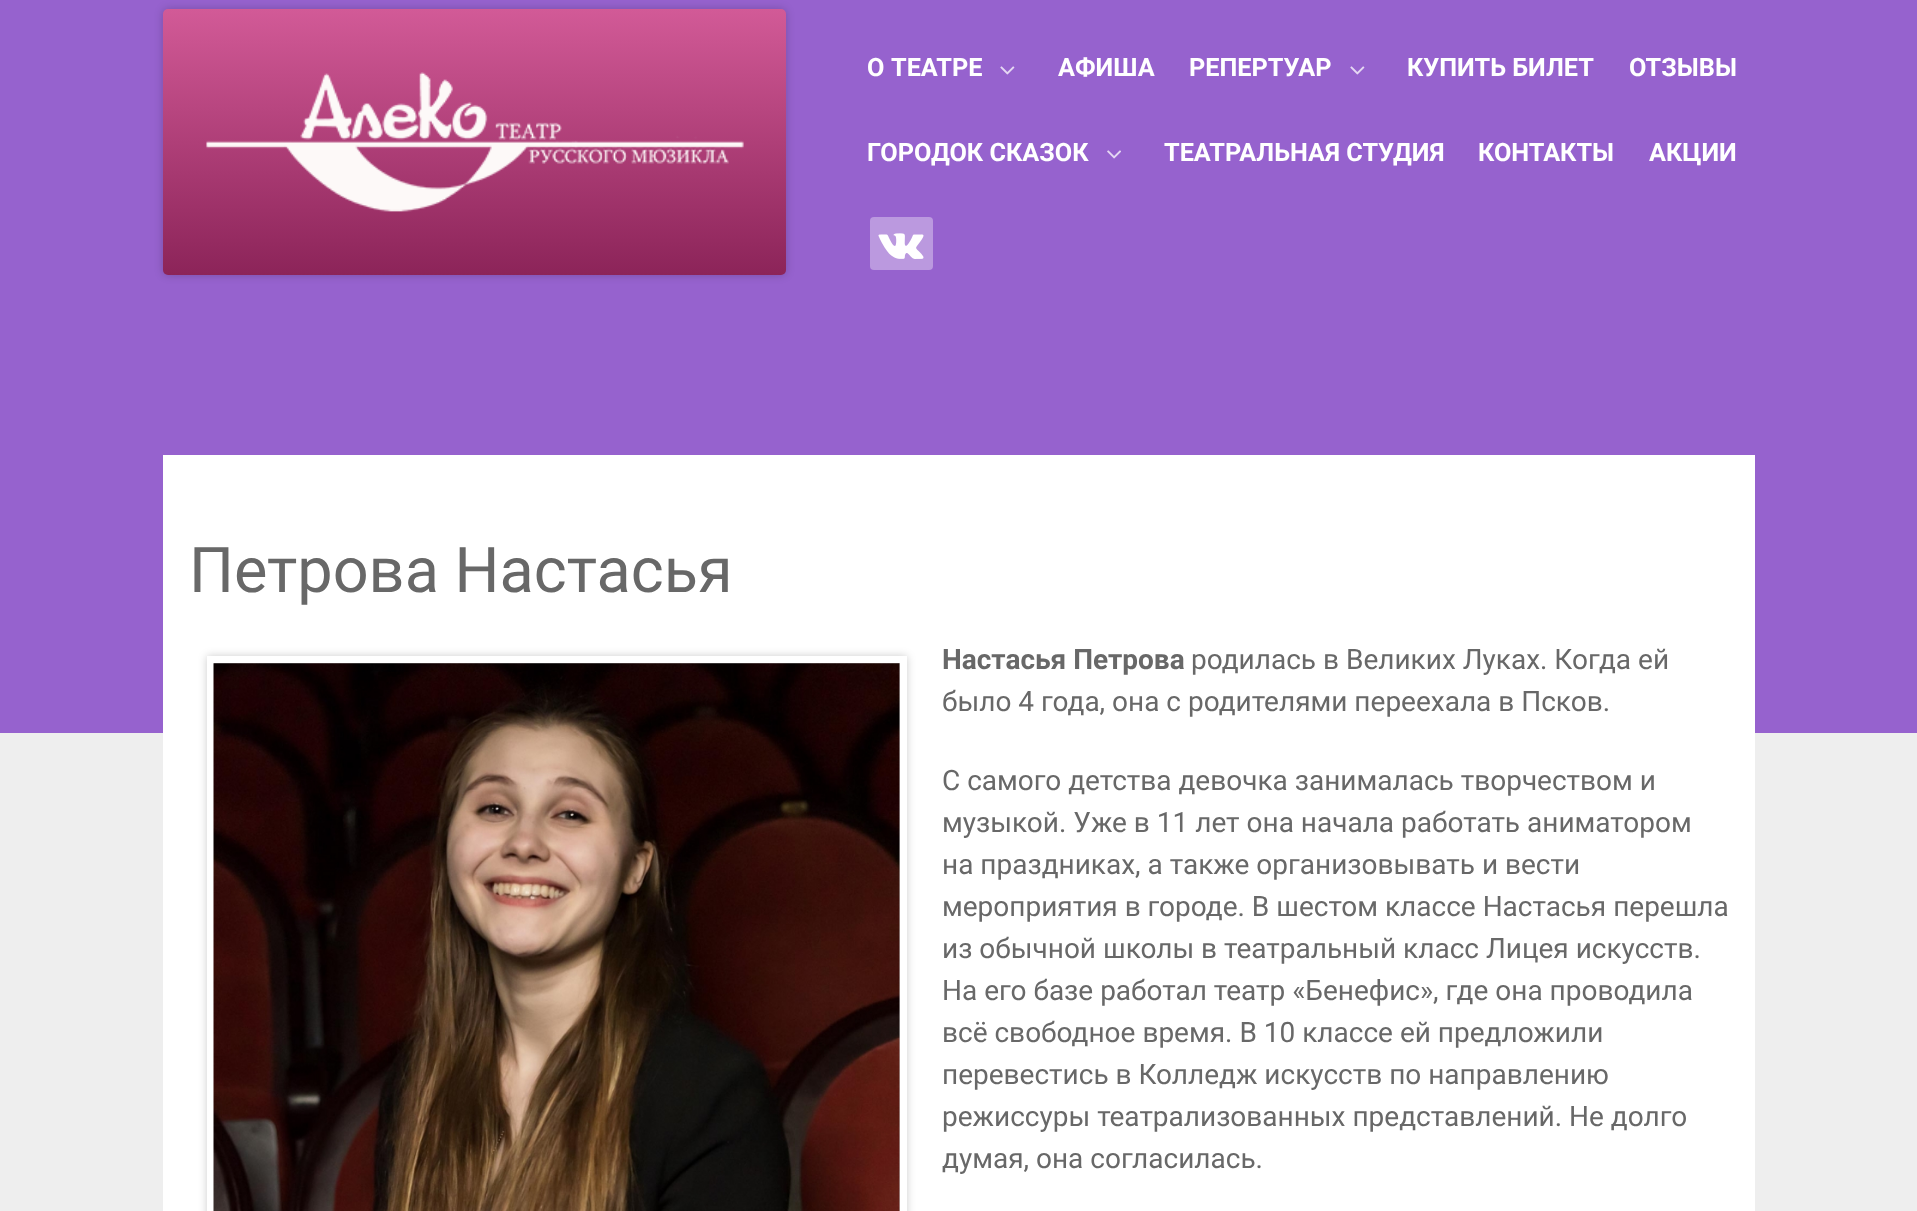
<svg xmlns="http://www.w3.org/2000/svg" width="1917" height="1211" viewBox="0 0 1917 1211">
  <defs>
    <linearGradient id="g1" gradientUnits="userSpaceOnUse" x1="474" y1="9" x2="474" y2="275"><stop offset="0" stop-color="rgb(210,90,151)"/><stop offset="1" stop-color="rgb(140,36,89)"/></linearGradient>
  </defs>
  <rect width="100%" height="100%" fill="rgb(238,238,238)"/>
  <rect x="0" y="0" width="1917" height="733" fill="rgb(150,98,206)"/>
  <rect x="163" y="9" width="623" height="266" rx="5" fill="rgba(0,0,0,0.2)" filter="blur(4.5px)"/>
  <rect x="163" y="9" width="623" height="266" rx="5" fill="url(#g1)"/>
  <image x="206" y="72" width="538" height="140" href="pic1.png"/>
  <text x="867" y="76" word-spacing="1" font-family="Roboto" font-size="25.25" font-weight="bold" fill="rgb(255,255,255)">О ТЕАТРЕ</text>
  <image x="1000" y="66" width="15" height="9" href="pic2.png"/>
  <g font-family="Roboto" font-size="25.25" font-weight="bold" fill="rgb(255,255,255)">
    <text x="1058" y="76">АФИША</text>
    <text x="1189" y="76">РЕПЕРТУАР</text>
  </g>
  <image x="1350" y="66" width="15" height="9" href="pic2.png"/>
  <g font-family="Roboto" font-size="25.25" font-weight="bold" fill="rgb(255,255,255)">
    <text x="1407" y="76">КУПИТЬ БИЛЕТ</text>
    <text x="1629" y="76">ОТЗЫВЫ</text>
    <text x="867" y="161">ГОРОДОК СКАЗОК</text>
  </g>
  <image x="1107" y="150" width="14" height="9" href="pic3.png"/>
  <g font-family="Roboto" font-size="25.25" font-weight="bold" fill="rgb(255,255,255)">
    <text x="1164" y="161">ТЕАТРАЛЬНАЯ СТУДИЯ</text>
    <text x="1478" y="161">КОНТАКТЫ</text>
    <text x="1649" y="161">АКЦИИ</text>
  </g>
  <rect x="870" y="217" width="63" height="53" rx="4" fill="rgb(187,153,223)"/>
  <image x="878" y="233" width="46" height="26" href="pic4.png"/>
  <rect x="163" y="455" width="1592" height="756" fill="rgb(255,255,255)"/>
  <text x="189" y="592" font-family="Roboto" font-size="63" fill="rgb(104,104,104)">Петрова Настасья</text>
  <rect x="207" y="656" width="700" height="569" fill="rgba(0,0,0,0.2)" filter="blur(4.5px)"/>
  <rect x="210.5" y="659.5" width="693" height="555" fill="none" stroke="rgb(255,255,255)" stroke-width="7"/>
  <image x="213" y="663" width="687" height="548" href="pic5.png"/>
  <text x="942" y="669" font-family="Roboto" font-size="28" font-weight="bold" fill="rgb(104,104,104)">Настасья Петрова</text>
  <g font-family="Roboto" font-size="28" fill="rgb(104,104,104)">
    <text x="1191" y="669">родилась в Великих Луках. Когда ей</text>
    <text x="942" y="711">было 4 года, она с родителями переехала в Псков.</text>
    <text>
      <tspan x="942" y="790">С самого детства девочка занималась творчеством и</tspan>
      <tspan x="942" y="832">музыкой. Уже в 11 лет она начала работать аниматором</tspan>
      <tspan x="942" y="874">на праздниках, а также организовывать и вести</tspan>
      <tspan x="942" y="916">мероприятия в городе. В шестом классе Настасья перешла</tspan>
      <tspan x="942" y="958">из обычной школы в театральный класс Лицея искусств.</tspan>
      <tspan x="942" y="1000">На его базе работал театр «Бенефис», где она проводила</tspan>
      <tspan x="942" y="1042">всё свободное время. В 10 классе ей предложили</tspan>
      <tspan x="942" y="1084">перевестись в Колледж искусств по направлению</tspan>
      <tspan x="942" y="1126">режиссуры театрализованных представлений. Не долго</tspan>
      <tspan x="942" y="1168">думая, она согласилась.</tspan>
    </text>
  </g>
</svg>
